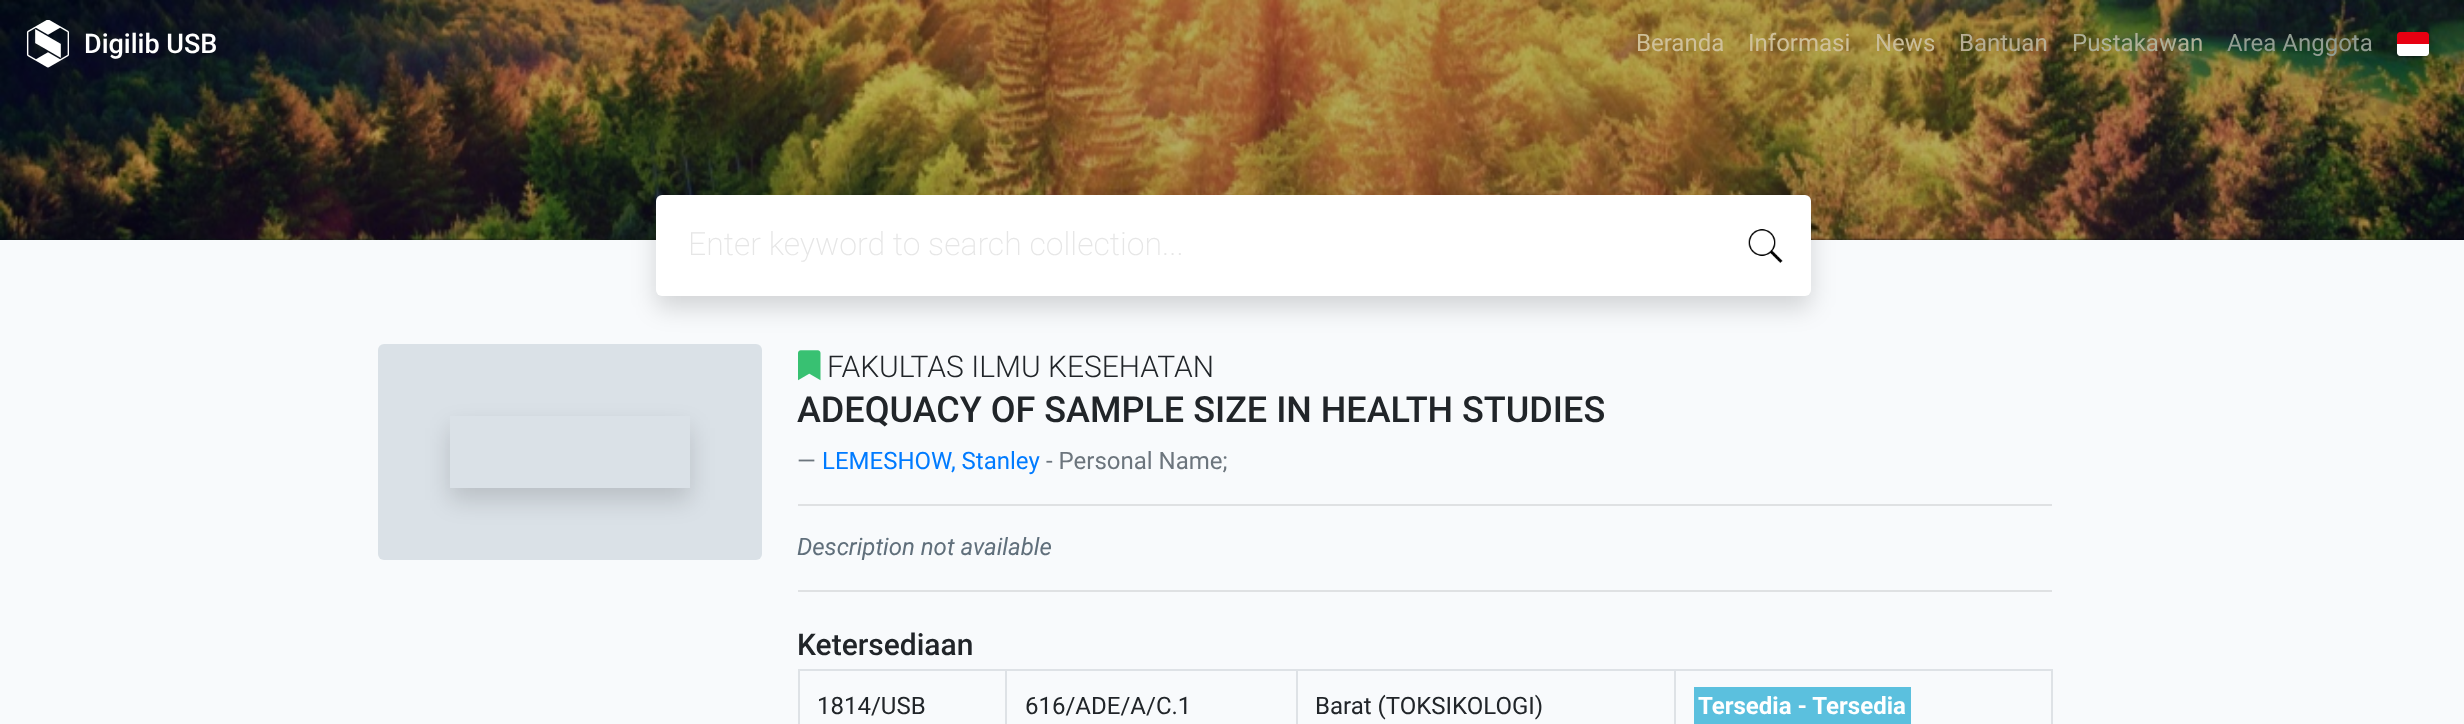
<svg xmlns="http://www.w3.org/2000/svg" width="2464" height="724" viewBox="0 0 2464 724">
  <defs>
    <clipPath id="clip1"><path d="M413 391H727V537H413ZM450 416H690V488H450Z" clip-rule="evenodd"/></clipPath>
  </defs>
  <rect width="100%" height="100%" fill="rgb(248,250,252)"/>
  <image x="0" y="238" width="2464" height="2" href="pic1.png"/>
  <image x="0" y="0" width="2464" height="240" href="pic2.png"/>
  <image x="26" y="20" width="43" height="48" href="pic3.png"/>
  <text x="84" y="53" font-family="Roboto" font-size="27" font-weight="500" fill="rgb(255,255,255)">Digilib USB</text>
  <g font-family="Roboto" font-size="24" fill="rgb(207,192,154)">
    <text x="1636" y="51">Beranda</text>
    <text x="1748" y="51">Informasi</text>
  </g>
  <text x="1875" y="51" font-family="Roboto" font-size="24" fill="rgb(201,188,152)">News</text>
  <text x="1959" y="51" font-family="Roboto" font-size="24" fill="rgb(183,174,147)">Bantuan</text>
  <text x="2072" y="51" font-family="Roboto" font-size="24" fill="rgb(174,176,151)">Pustakawan</text>
  <text x="2227" y="51" font-family="Roboto" font-size="24" fill="rgb(145,157,146)">Area Anggota</text>
  <path d="M2400 32H2426C2427.5 32 2429 33.5 2429 35V44H2397V35C2397 33.5 2398.5 32 2400 32Z" fill="rgb(231,0,17)"/>
  <path d="M2397 44H2429V53C2429 54.5 2427.5 56 2426 56H2400C2398.5 56 2397 54.5 2397 53Z" fill="rgb(255,255,255)"/>
  <rect x="378" y="344" width="384" height="216" rx="6" fill="rgb(218,225,231)"/>
  <rect x="656" y="207" width="1155" height="101" rx="6" fill="rgba(0,0,0,0.15)" filter="blur(12px)"/>
  <rect x="656" y="195" width="1155" height="101" rx="6" fill="rgb(255,255,255)"/>
  <image x="1748" y="229" width="35" height="34" href="pic4.png"/>
  <text x="688" y="255" font-family="Roboto" font-size="32" font-weight="200" fill="rgb(230,230,230)">Enter keyword to search collection...</text>
  <g clip-path="url(#clip1)">
    <rect x="450" y="428" width="240" height="72" fill="rgba(0,0,0,0.15)" filter="blur(12px)"/>
  </g>
  <image x="798" y="350" width="23" height="31" href="pic5.png"/>
  <text x="827" y="377" font-family="Roboto" font-size="30" font-weight="300" fill="rgb(33,37,41)">FAKULTAS ILMU KESEHATAN</text>
  <text x="797" y="422" font-family="Roboto" font-size="36" font-weight="500" fill="rgb(33,37,41)">ADEQUACY OF SAMPLE SIZE IN HEALTH STUDIES</text>
  <text x="797" y="469" font-family="Roboto" font-size="24" fill="rgb(108,117,125)">—</text>
  <text x="822" y="469" font-family="Roboto" font-size="24" fill="rgb(0,123,255)">LEMESHOW, Stanley</text>
  <text x="1046" y="469" font-family="Roboto" font-size="24" fill="rgb(108,117,125)">- Personal Name;</text>
  <rect x="798" y="504" width="1254" height="2" fill="rgb(223,225,227)"/>
  <text x="797" y="555" font-family="Roboto" font-size="24" font-style="italic" fill="rgb(96,111,123)">Description not available</text>
  <rect x="798" y="590" width="1254" height="2" fill="rgb(223,225,227)"/>
  <text x="797" y="655" font-family="Roboto" font-size="30" font-weight="500" fill="rgb(33,37,41)">Ketersediaan</text>
  <rect x="798" y="669" width="1254" height="2" fill="rgb(222,226,230)"/>
  <rect x="2051" y="669" width="2" height="55" fill="rgb(222,226,230)"/>
  <rect x="798" y="669" width="2" height="55" fill="rgb(222,226,230)"/>
  <text x="817" y="714" font-family="Roboto" font-size="24" fill="rgb(33,37,41)">1814/USB</text>
  <rect x="1005" y="669" width="2" height="55" fill="rgb(222,226,230)"/>
  <text x="1025" y="714" font-family="Roboto" font-size="24" fill="rgb(33,37,41)">616/ADE/A/C.1</text>
  <rect x="1296" y="669" width="2" height="55" fill="rgb(222,226,230)"/>
  <text x="1315" y="714" font-family="Roboto" font-size="24" fill="rgb(33,37,41)">Barat (TOKSIKOLOGI)</text>
  <rect x="1674" y="669" width="2" height="55" fill="rgb(222,226,230)"/>
  <rect x="1694" y="687" width="217" height="37" fill="rgb(91,192,222)"/>
  <text x="1698" y="714" font-family="Roboto" font-size="24" font-weight="bold" fill="rgb(255,255,255)">Tersedia - Tersedia</text>
</svg>
